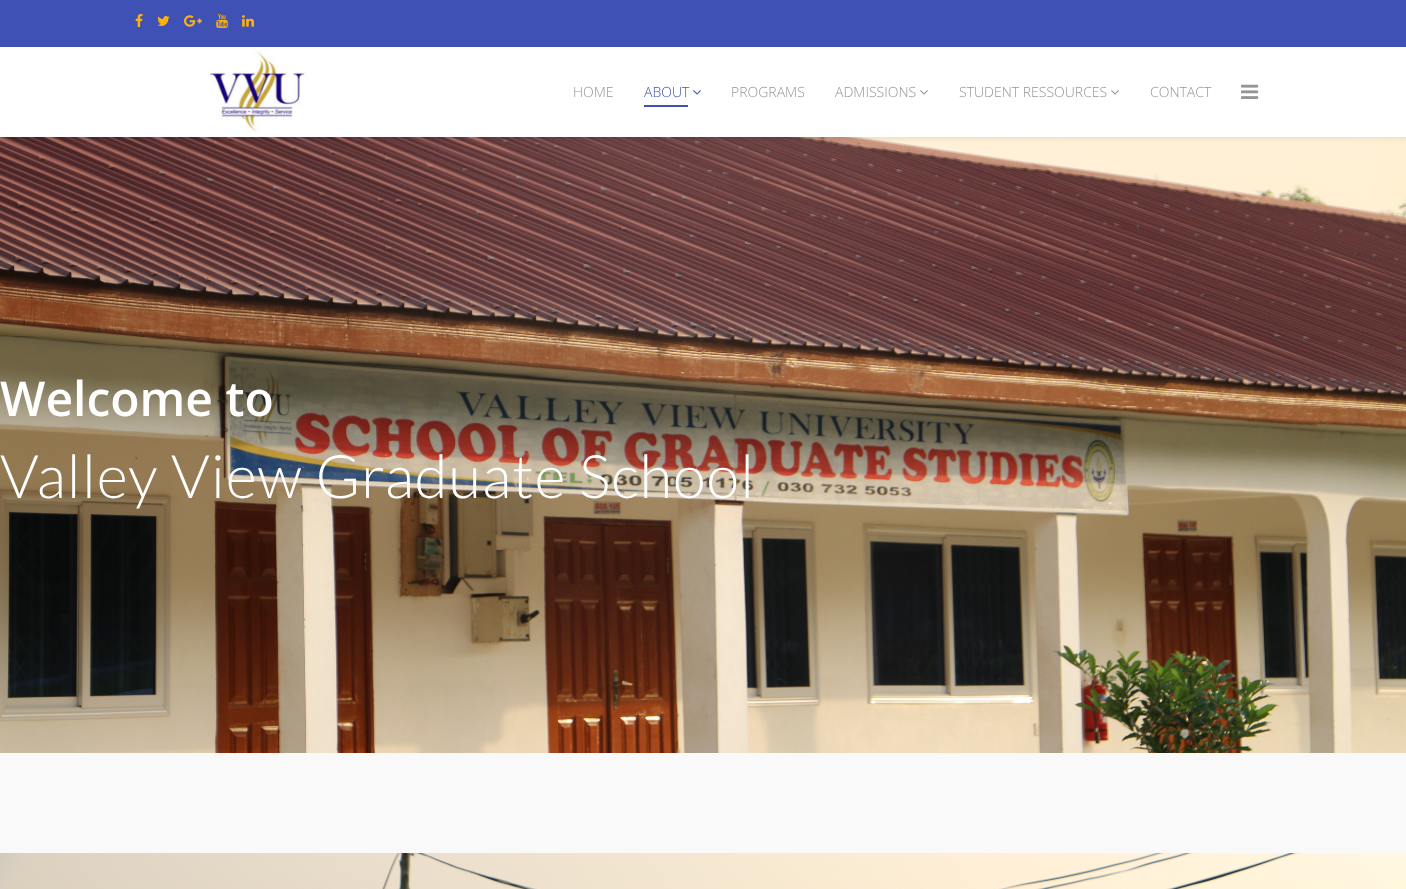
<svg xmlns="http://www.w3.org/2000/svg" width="1406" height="889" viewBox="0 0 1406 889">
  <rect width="100%" height="100%" fill="rgb(249,249,249)"/>
  <rect x="0" y="0" width="1406" height="47" fill="rgb(63,81,181)"/>
  <image x="135" y="14" width="8" height="13" href="pic1.png"/>
  <image x="157" y="16" width="13" height="10" href="pic2.png"/>
  <image x="184" y="15" width="18" height="12" href="pic3.png"/>
  <image x="216" y="14" width="12" height="14" href="pic4.png"/>
  <image x="242" y="15" width="12" height="12" href="pic5.png"/>
  <image x="0" y="137" width="1406" height="616" href="pic10.png"/>
  <rect x="0" y="50" width="1406" height="90" fill="rgba(0,0,0,0.05)" filter="blur(1.5px)"/>
  <rect x="0" y="47" width="1406" height="90" fill="rgb(255,255,255)"/>
  <image x="210" y="50" width="99" height="83" href="pic6.png"/>
  <text x="573" y="97" font-family="Open Sans" font-size="14" font-weight="300" fill="rgb(149,149,149)">HOME</text>
  <text x="644" y="97" font-family="Open Sans" font-size="14" font-weight="300" fill="rgb(63,81,181)">ABOUT</text>
  <image x="693" y="90" width="8" height="5" href="pic7.png"/>
  <rect x="644" y="105" width="44" height="2" fill="rgb(63,81,181)"/>
  <g font-family="Open Sans" font-size="14" font-weight="300" fill="rgb(149,149,149)">
    <text x="731" y="97">PROGRAMS</text>
    <text x="835" y="97">ADMISSIONS</text>
  </g>
  <image x="920" y="90" width="8" height="5" href="pic8.png"/>
  <text x="959" y="97" font-family="Open Sans" font-size="14" font-weight="300" fill="rgb(149,149,149)">STUDENT RESSOURCES</text>
  <image x="1111" y="90" width="8" height="5" href="pic8.png"/>
  <text x="1150" y="97" font-family="Open Sans" font-size="14" font-weight="300" fill="rgb(149,149,149)">CONTACT</text>
  <image x="1241" y="84" width="18" height="15" href="pic9.png"/>
  <text x="0" y="416" font-family="Open Sans" font-size="48" font-weight="600" fill="rgb(255,255,255)">Welcome to</text>
  <text x="0" y="498" font-family="Lato" font-size="60" font-weight="300" letter-spacing="1" fill="rgb(255,255,255)">Valley View Graduate School</text>
  <image x="0" y="853" width="1406" height="36" href="pic11.png"/>
</svg>
